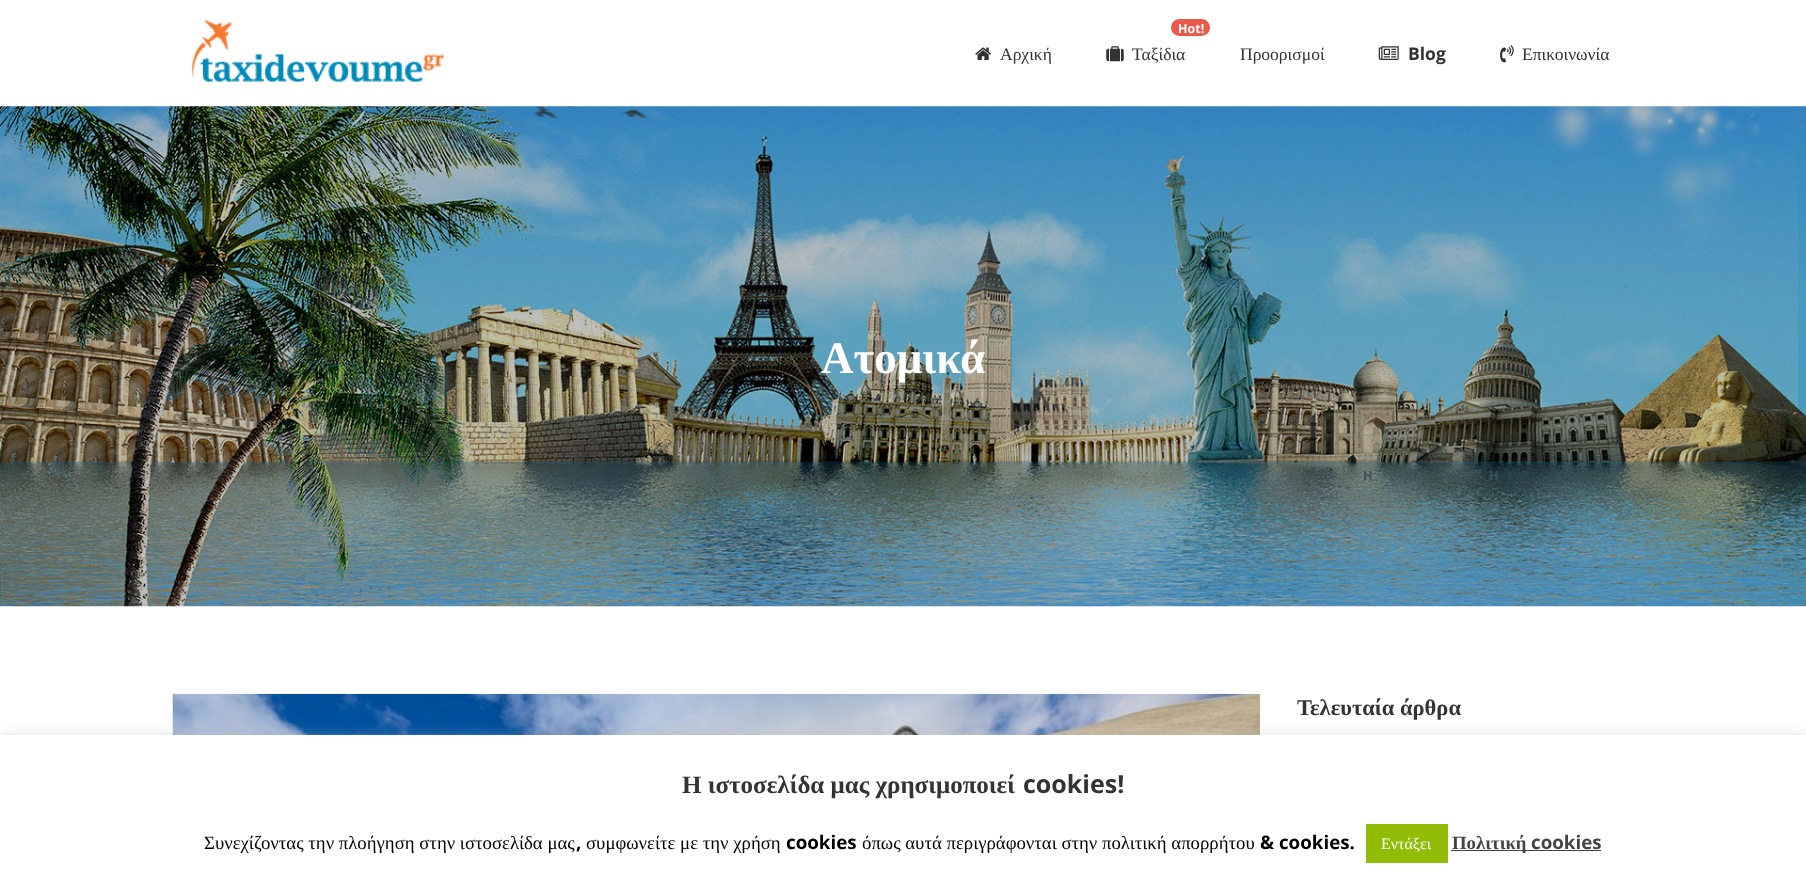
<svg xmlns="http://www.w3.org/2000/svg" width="1806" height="877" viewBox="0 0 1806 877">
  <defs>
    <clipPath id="clip1"><rect x="173" y="406" width="1462" height="28"/></clipPath>
  </defs>
  <rect width="100%" height="100%" fill="rgb(255,255,255)"/>
  <image x="191" y="19" width="254" height="63" href="pic1.png"/>
  <image x="975" y="47" width="16" height="13" href="pic2.png"/>
  <text x="1000" y="60" font-family="Liberation Serif" font-size="17.5" fill="rgb(51,51,51)">Αρχική</text>
  <rect x="1171" y="19" width="39" height="17" rx="8.5" fill="rgb(236,88,73)"/>
  <text x="1178" y="33" font-family="Open Sans" font-size="12.5" font-weight="bold" fill="rgb(255,255,255)">Hot!</text>
  <image x="1106" y="46" width="18" height="16" href="pic3.png"/>
  <g font-family="Liberation Serif" font-size="17.5" fill="rgb(51,51,51)">
    <text x="1132" y="60">Ταξίδια</text>
    <text x="1240" y="60">Προορισμοί</text>
  </g>
  <image x="1378" y="46" width="21" height="14" href="pic4.png"/>
  <text x="1408" y="60" font-family="Open Sans" font-size="17.5" font-weight="bold" fill="rgb(51,51,51)">Blog</text>
  <image x="1500" y="45" width="14" height="18" href="pic5.png"/>
  <text x="1522" y="60" font-family="Liberation Serif" font-size="17.5" fill="rgb(51,51,51)">Επικοινωνία</text>
  <image x="0" y="106" width="1806" height="501" href="pic6.png"/>
  <text x="821" y="373" font-family="Liberation Serif" font-size="45" font-weight="bold" fill="rgb(255,255,255)">Ατομικά</text>
  <g clip-path="url(#clip1)">
    <text x="172" y="428" font-family="Open Sans" font-size="20" font-weight="bold" letter-spacing="3.75" fill="rgb(132,122,100)">Search...</text>
  </g>
  <g font-family="Open Sans" font-size="12.5" font-weight="bold" fill="rgb(60,81,84)">
    <text x="1363" y="480">H</text>
    <text x="1489" y="480">H</text>
  </g>
  <image x="172" y="693" width="1088" height="42" href="pic7.png"/>
  <text x="1297" y="715" font-family="Liberation Serif" font-size="22.5" font-weight="bold" fill="rgb(51,51,51)">Τελευταία άρθρα</text>
  <rect x="0" y="734" width="1806" height="142" fill="rgba(172,171,171,0.3)" filter="blur(6px)"/>
  <rect x="0" y="735" width="1806" height="142" fill="rgb(255,255,255)"/>
  <text x="682" y="793" font-family="Liberation Serif" font-size="25" font-weight="bold" fill="rgb(51,51,51)">Η ιστοσελίδα μας χρησιμοποιεί</text>
  <text x="1023" y="793" font-family="Open Sans" font-size="25" font-weight="bold" fill="rgb(51,51,51)">cookies!</text>
  <text x="204" y="849" font-family="Liberation Serif" font-size="18.75" fill="rgb(0,0,0)">Συνεχίζοντας την πλοήγηση στην ιστοσελίδα μας</text>
  <text x="576" y="849" font-family="Open Sans" font-size="18.75" font-weight="bold" fill="rgb(0,0,0)">,</text>
  <text x="586" y="849" font-family="Liberation Serif" font-size="18.75" fill="rgb(0,0,0)">συμφωνείτε με την χρήση</text>
  <text x="786" y="849" font-family="Open Sans" font-size="18.75" font-weight="bold" fill="rgb(0,0,0)">cookies</text>
  <text x="862" y="849" font-family="Liberation Serif" font-size="18.75" fill="rgb(0,0,0)">όπως αυτά περιγράφονται στην πολιτική απορρήτου</text>
  <text x="1260" y="849" font-family="Open Sans" font-size="18.75" font-weight="bold" fill="rgb(0,0,0)">&amp; cookies.</text>
  <rect x="1366" y="824" width="82" height="39" fill="rgb(145,189,9)"/>
  <text x="1381" y="849" font-family="Liberation Serif" font-size="16" fill="rgb(255,255,255)">Εντάξει</text>
  <rect x="1451" y="850" width="150" height="1" fill="rgb(68,68,68)"/>
  <text x="1452" y="849" font-family="Liberation Serif" font-size="18.75" font-weight="bold" fill="rgb(68,68,68)">Πολιτική</text>
  <text x="1531" y="849" font-family="Open Sans" font-size="18.75" font-weight="bold" fill="rgb(68,68,68)">cookies</text>
</svg>
